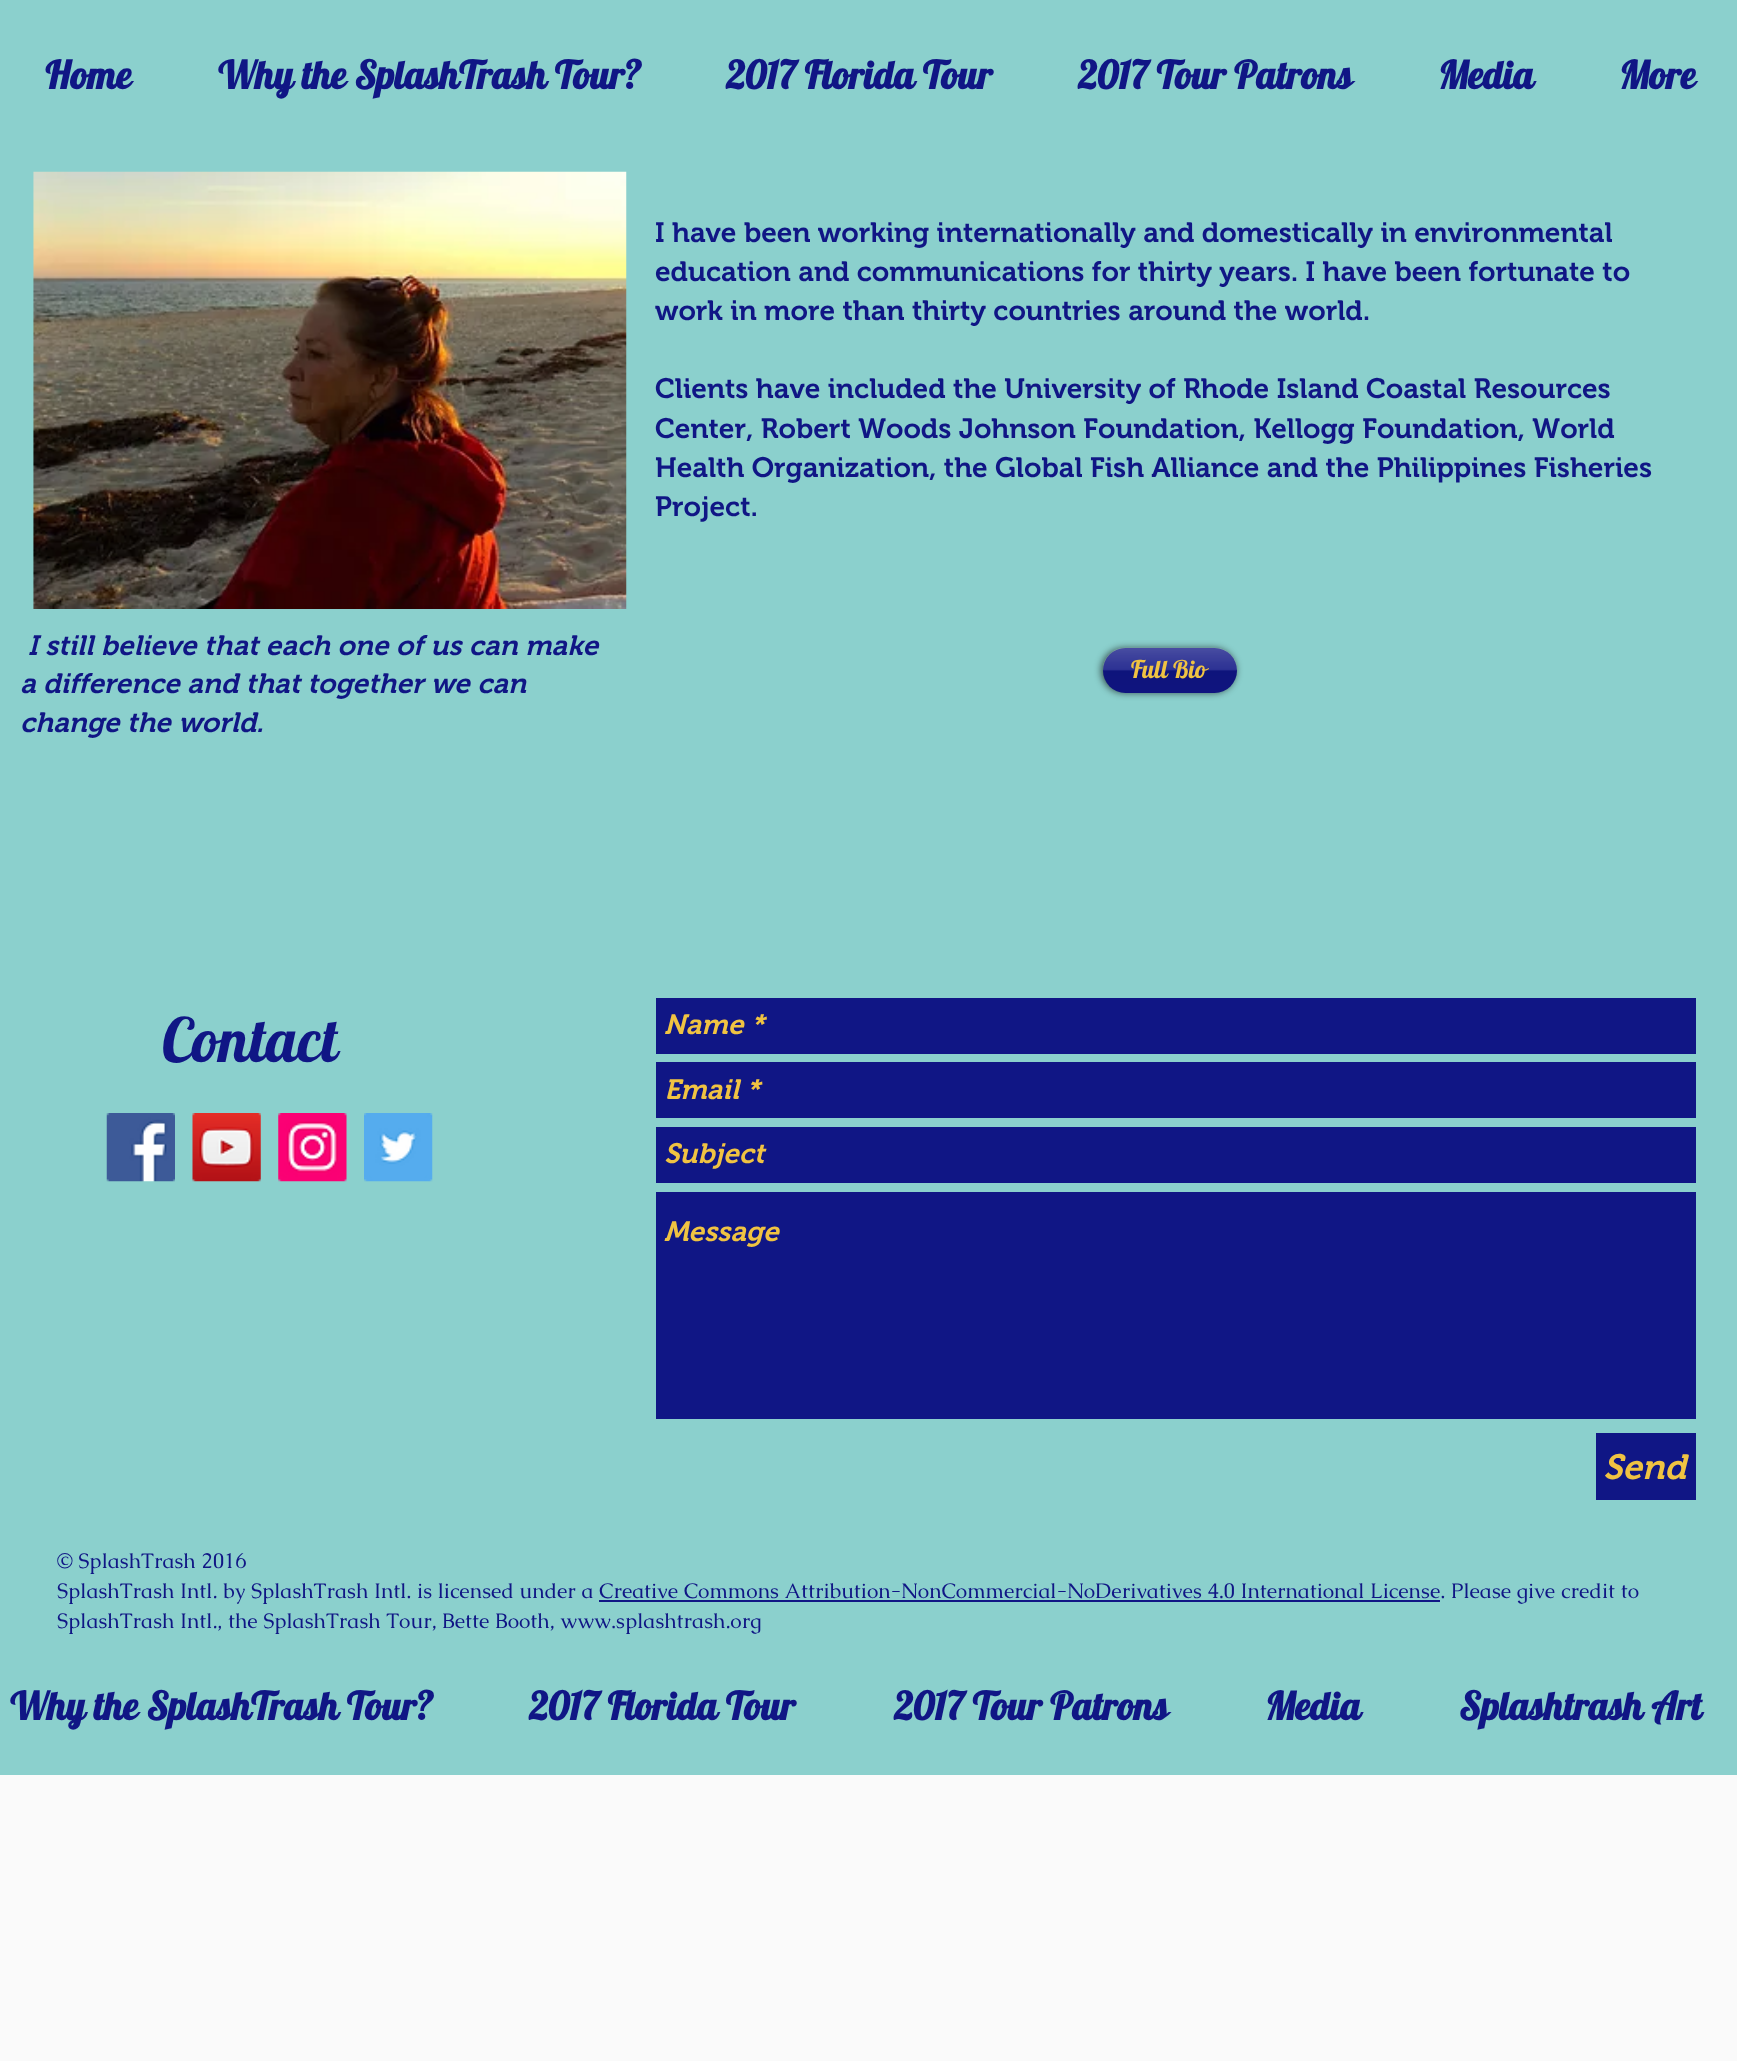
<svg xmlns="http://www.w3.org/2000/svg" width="1737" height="2061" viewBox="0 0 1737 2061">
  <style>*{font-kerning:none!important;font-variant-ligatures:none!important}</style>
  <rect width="100%" height="100%" fill="rgb(139,208,205)"/>
  <g font-family="Lobster" font-size="38.5" font-weight="bold" fill="rgb(16,22,133)">
    <text x="45" y="89">Home</text>
    <text x="218" y="89">Why the SplashTrash Tour?</text>
    <text x="726" y="89">2017 Florida Tour</text>
    <text x="1078" y="89">2017 Tour Patrons</text>
    <text x="1438" y="89">Media</text>
    <text x="1619" y="89">More</text>
  </g>
  <image x="33" y="171" width="594" height="438" href="pic1.png"/>
  <g font-family="'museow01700'" font-size="28" font-weight="600" fill="rgb(16,22,133)">
    <text>
      <tspan x="655" y="242">I have been working internationally and domestically in environmental</tspan>
      <tspan x="655" y="281">education and communications for thirty years. I have been fortunate to</tspan>
      <tspan x="655" y="320">work in more than thirty countries around the world.</tspan>
    </text>
    <text>
      <tspan x="655" y="398">Clients have included the University of Rhode Island Coastal Resources</tspan>
      <tspan x="655" y="438">Center, Robert Woods Johnson Foundation, Kellogg Foundation, World</tspan>
      <tspan x="655" y="477">Health Organization, the Global Fish Alliance and the Philippines Fisheries</tspan>
      <tspan x="655" y="516">Project.</tspan>
    </text>
  </g>
  <g font-family="'museow01700'" font-size="28" font-weight="600" font-style="italic" fill="rgb(16,22,133)">
    <text x="28" y="655">I still believe that each one of us can make</text>
    <text>
      <tspan x="20" y="693">a difference and that together we can</tspan>
      <tspan x="20" y="732">change the world.</tspan>
    </text>
  </g>
  <rect x="1101" y="648" width="135" height="45" rx="22.5" fill="rgba(0,0,0,0.6)" filter="blur(3.5px)"/>
  <rect x="1103" y="648" width="134" height="45" rx="22.5" fill="rgb(16,22,133)"/>
  <image x="1103" y="647" width="134" height="46" href="pic2.png"/>
  <text x="1131" y="678" font-family="Lobster" font-size="24.5" fill="rgb(240,195,66)">Full Bio</text>
  <text x="162" y="1062" font-family="Lobster" font-size="61" fill="rgb(16,22,133)">Contact</text>
  <rect x="656" y="998" width="1040" height="56" fill="rgb(16,22,133)"/>
  <text x="664" y="1034" font-family="'museow01700'" font-size="28" font-weight="600" font-style="italic" fill="rgb(240,195,66)">Name *</text>
  <rect x="656" y="1062" width="1040" height="56" fill="rgb(16,22,133)"/>
  <text x="664" y="1099" font-family="'museow01700'" font-size="28" font-weight="600" font-style="italic" fill="rgb(240,195,66)">Email *</text>
  <rect x="656" y="1127" width="1040" height="56" fill="rgb(16,22,133)"/>
  <text x="664" y="1163" font-family="'museow01700'" font-size="28" font-weight="600" font-style="italic" fill="rgb(240,195,66)">Subject</text>
  <rect x="656" y="1192" width="1040" height="227" fill="rgb(16,22,133)"/>
  <text x="664" y="1241" font-family="'museow01700'" font-size="28" font-weight="600" font-style="italic" fill="rgb(240,195,66)">Message</text>
  <rect x="1596" y="1433" width="100" height="67" fill="rgb(16,22,133)"/>
  <text x="1603" y="1479" font-family="'museow01700'" font-size="35" font-weight="600" font-style="italic" fill="rgb(240,195,66)">Send</text>
  <image x="106" y="1113" width="69" height="69" href="pic3.png"/>
  <image x="192" y="1113" width="69" height="69" href="pic4.png"/>
  <image x="278" y="1113" width="69" height="69" href="pic5.png"/>
  <image x="364" y="1113" width="69" height="69" href="pic6.png"/>
  <g font-family="Caudex" font-size="21" fill="rgb(16,22,133)">
    <text>
      <tspan x="57" y="1568">© SplashTrash 2016</tspan>
      <tspan x="57" y="1598">SplashTrash Intl. by SplashTrash Intl. is licensed under a Creative Commons Attribution-NonCommercial-NoDerivatives 4.0 International License. Please give</tspan>
    </text>
    <text x="1561" y="1598">credit to</text>
  </g>
  <rect x="599" y="1600" width="841" height="2" fill="rgb(16,22,133)"/>
  <text x="57" y="1628" font-family="Caudex" font-size="21" fill="rgb(16,22,133)">SplashTrash Intl., the SplashTrash Tour,</text>
  <text x="442" y="1628" font-family="Caudex" font-size="21" fill="rgb(16,22,133)">Bette Booth, www.splashtrash.org</text>
  <g font-family="Lobster" font-size="38.5" font-weight="bold" fill="rgb(16,22,133)">
    <text x="10" y="1720">Why the SplashTrash Tour?</text>
    <text x="529" y="1720">2017 Florida Tour</text>
    <text x="894" y="1720">2017 Tour Patrons</text>
    <text x="1265" y="1720">Media</text>
    <text x="1459" y="1720">Splashtrash Art</text>
  </g>
  <rect x="0" y="1775" width="1737" height="286" fill="rgb(250,250,250)"/>
</svg>
